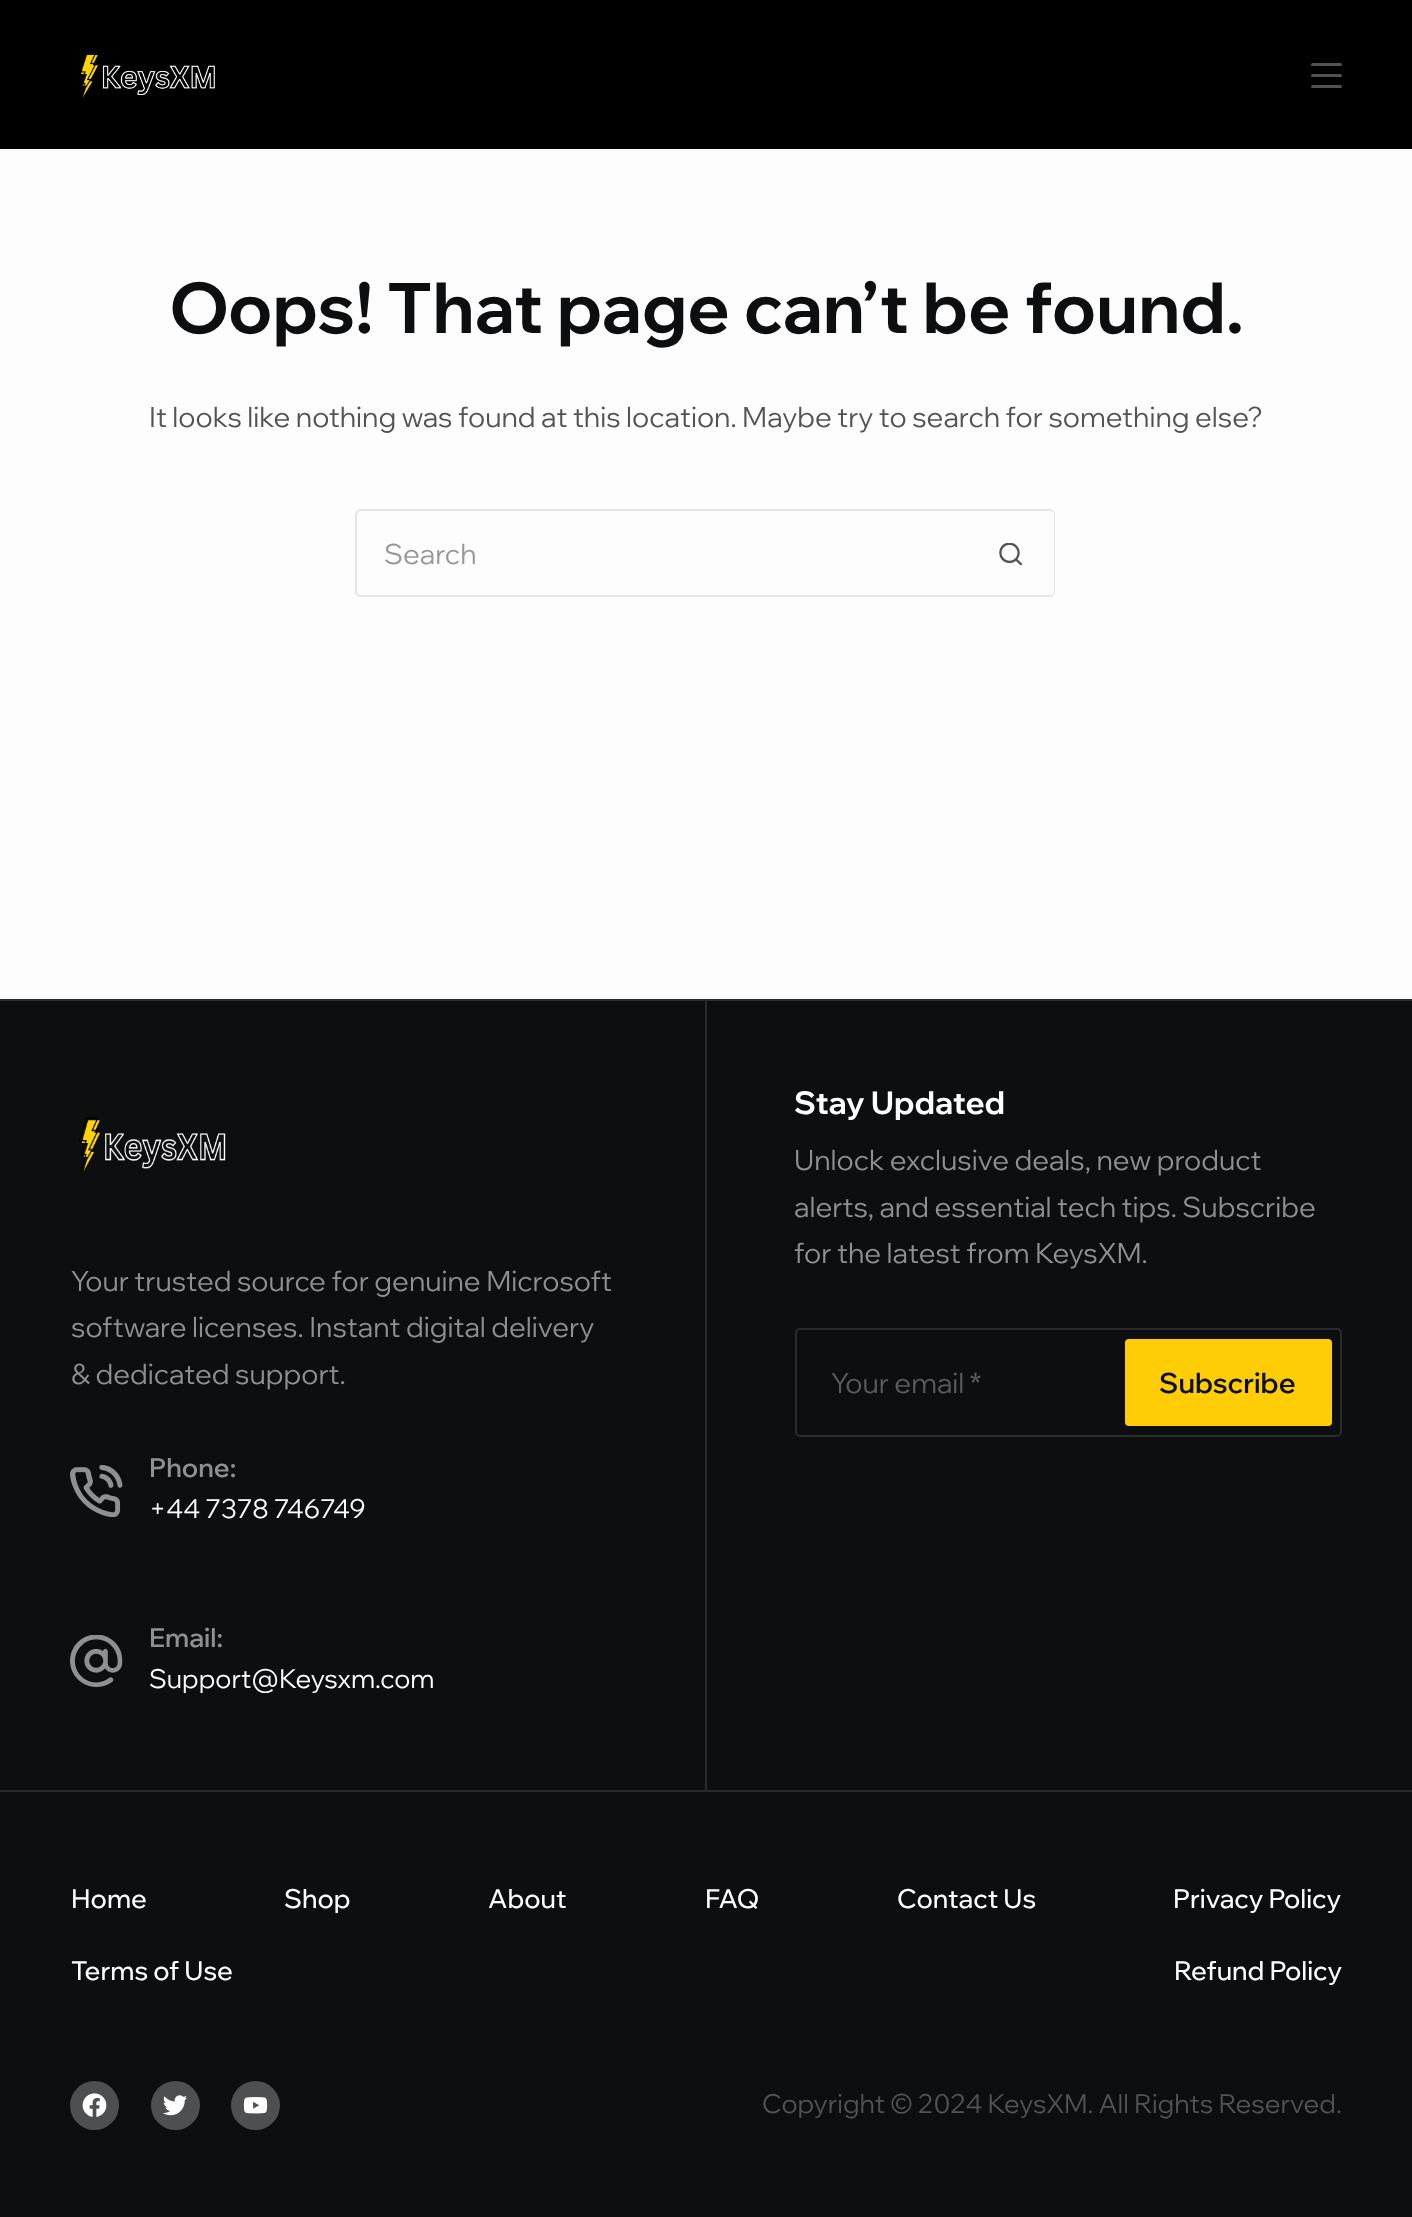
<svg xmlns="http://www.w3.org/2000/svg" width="1412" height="2217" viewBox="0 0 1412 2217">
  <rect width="100%" height="100%" fill="rgb(253,253,253)"/>
  <rect x="0" y="0" width="1412" height="149" fill="rgb(0,0,0)"/>
  <image x="80" y="54" width="135" height="44" href="pic1.png"/>
  <rect x="1311" y="63" width="31" height="3" rx="1.5" fill="rgb(83,83,83)"/>
  <rect x="1311" y="74" width="31" height="3" rx="1.5" fill="rgb(83,83,83)"/>
  <rect x="1311" y="85" width="31" height="3" rx="1.5" fill="rgb(83,83,83)"/>
  <text x="169" y="333" font-family="Wix Madefor Display" font-size="70" font-weight="bold" fill="rgb(13,14,16)">Oops! That page can’t be found.</text>
  <text x="149" y="427" font-family="Wix Madefor Display" font-size="28" fill="rgb(83,83,83)">It looks like nothing was found at this location. Maybe try to search for something else?</text>
  <path d="M360 509H968V597H360C358 597 355 594 355 592V514C355 512 358 509 360 509ZM360 511H968V595H360C359 595 357 593 357 592V514C357 513 359 511 360 511Z" fill="rgb(228,229,231)" fill-rule="evenodd"/>
  <text x="384" y="564" font-family="Wix Madefor Display" font-size="28" fill="rgb(152,152,152)">Search</text>
  <path d="M968 509H1050C1053 509 1055 512 1055 514V592C1055 594 1053 597 1050 597H968ZM968 511H1050C1052 511 1054 513 1054 514V592C1054 593 1052 595 1050 595H968Z" fill="rgb(228,229,231)" fill-rule="evenodd"/>
  <image x="999" y="543" width="23" height="22" href="pic2.png"/>
  <rect x="0" y="1001" width="1412" height="789" fill="rgb(13,14,16)"/>
  <rect x="0" y="999" width="1412" height="2" fill="rgb(42,43,45)"/>
  <rect x="0" y="1790" width="1412" height="2" fill="rgb(42,43,45)"/>
  <rect x="705" y="1001" width="2" height="789" fill="rgb(42,43,45)"/>
  <image x="79" y="1117" width="147" height="55" href="pic3.png"/>
  <g font-family="Wix Madefor Display" font-size="28" fill="rgb(144,144,145)">
    <text>
      <tspan x="71" y="1291">Your trusted source for genuine Microsoft</tspan>
      <tspan x="71" y="1337">software licenses. Instant digital delivery</tspan>
      <tspan x="71" y="1384">&amp; dedicated support.</tspan>
    </text>
  </g>
  <image x="70" y="1465" width="53" height="52" href="pic4.png"/>
  <text x="149" y="1477" font-family="Wix Madefor Display" font-size="26.25" font-weight="600" fill="rgb(144,144,145)">Phone:</text>
  <text x="149" y="1518" font-family="Wix Madefor Display" font-size="26.25" fill="rgb(255,255,255)">+44 7378 746749</text>
  <image x="70" y="1635" width="53" height="52" href="pic5.png"/>
  <text x="149" y="1647" font-family="Wix Madefor Display" font-size="26.25" font-weight="600" fill="rgb(144,144,145)">Email:</text>
  <text x="149" y="1688" font-family="Wix Madefor Display" font-size="26.25" fill="rgb(255,255,255)">Support@Keysxm.com</text>
  <text x="794" y="1114" font-family="Wix Madefor Display" font-size="31.5" font-weight="bold" fill="rgb(255,255,255)">Stay Updated</text>
  <g font-family="Wix Madefor Display" font-size="28" fill="rgb(144,144,145)">
    <text>
      <tspan x="794" y="1170">Unlock exclusive deals, new product</tspan>
      <tspan x="794" y="1217">alerts, and essential tech tips. Subscribe</tspan>
      <tspan x="794" y="1263">for the latest from KeysXM.</tspan>
    </text>
  </g>
  <rect x="796" y="1329" width="545" height="107" rx="4" fill="none" stroke="rgb(42,43,45)" stroke-width="2"/>
  <text x="831" y="1393" font-family="Wix Madefor Display" font-size="28" fill="rgb(91,92,93)">Your email *</text>
  <rect x="1125" y="1339" width="207" height="87" rx="4" fill="rgb(255,205,5)"/>
  <text x="1159" y="1393" font-family="Wix Madefor Display" font-size="28" font-weight="600" fill="rgb(13,14,16)">Subscribe</text>
  <rect x="0" y="1792" width="1412" height="425" fill="rgb(13,14,16)"/>
  <g font-family="Wix Madefor Display" font-size="26.25" font-weight="500" fill="rgb(255,255,255)">
    <text x="71" y="1908">Home</text>
    <text x="284" y="1908">Shop</text>
    <text x="488" y="1908">About</text>
    <text x="705" y="1908">FAQ</text>
    <text x="897" y="1908">Contact Us</text>
    <text x="1173" y="1908">Privacy Policy</text>
    <text x="71" y="1980">Terms of Use</text>
    <text x="1174" y="1980">Refund Policy</text>
  </g>
  <circle cx="94.5" cy="2105.5" r="24.5" fill="rgb(78,79,81)"/>
  <image x="82" y="2093" width="25" height="24" href="pic6.png"/>
  <circle cx="175.5" cy="2105.5" r="24.5" fill="rgb(78,79,81)"/>
  <image x="163" y="2095" width="24" height="21" href="pic7.png"/>
  <circle cx="255.5" cy="2105.5" r="24.5" fill="rgb(78,79,81)"/>
  <image x="243" y="2097" width="25" height="17" href="pic8.png"/>
  <text x="762" y="2113" font-family="Wix Madefor Display" font-size="26.25" fill="rgb(83,83,83)">Copyright © 2024 KeysXM. All Rights Reserved.</text>
</svg>
